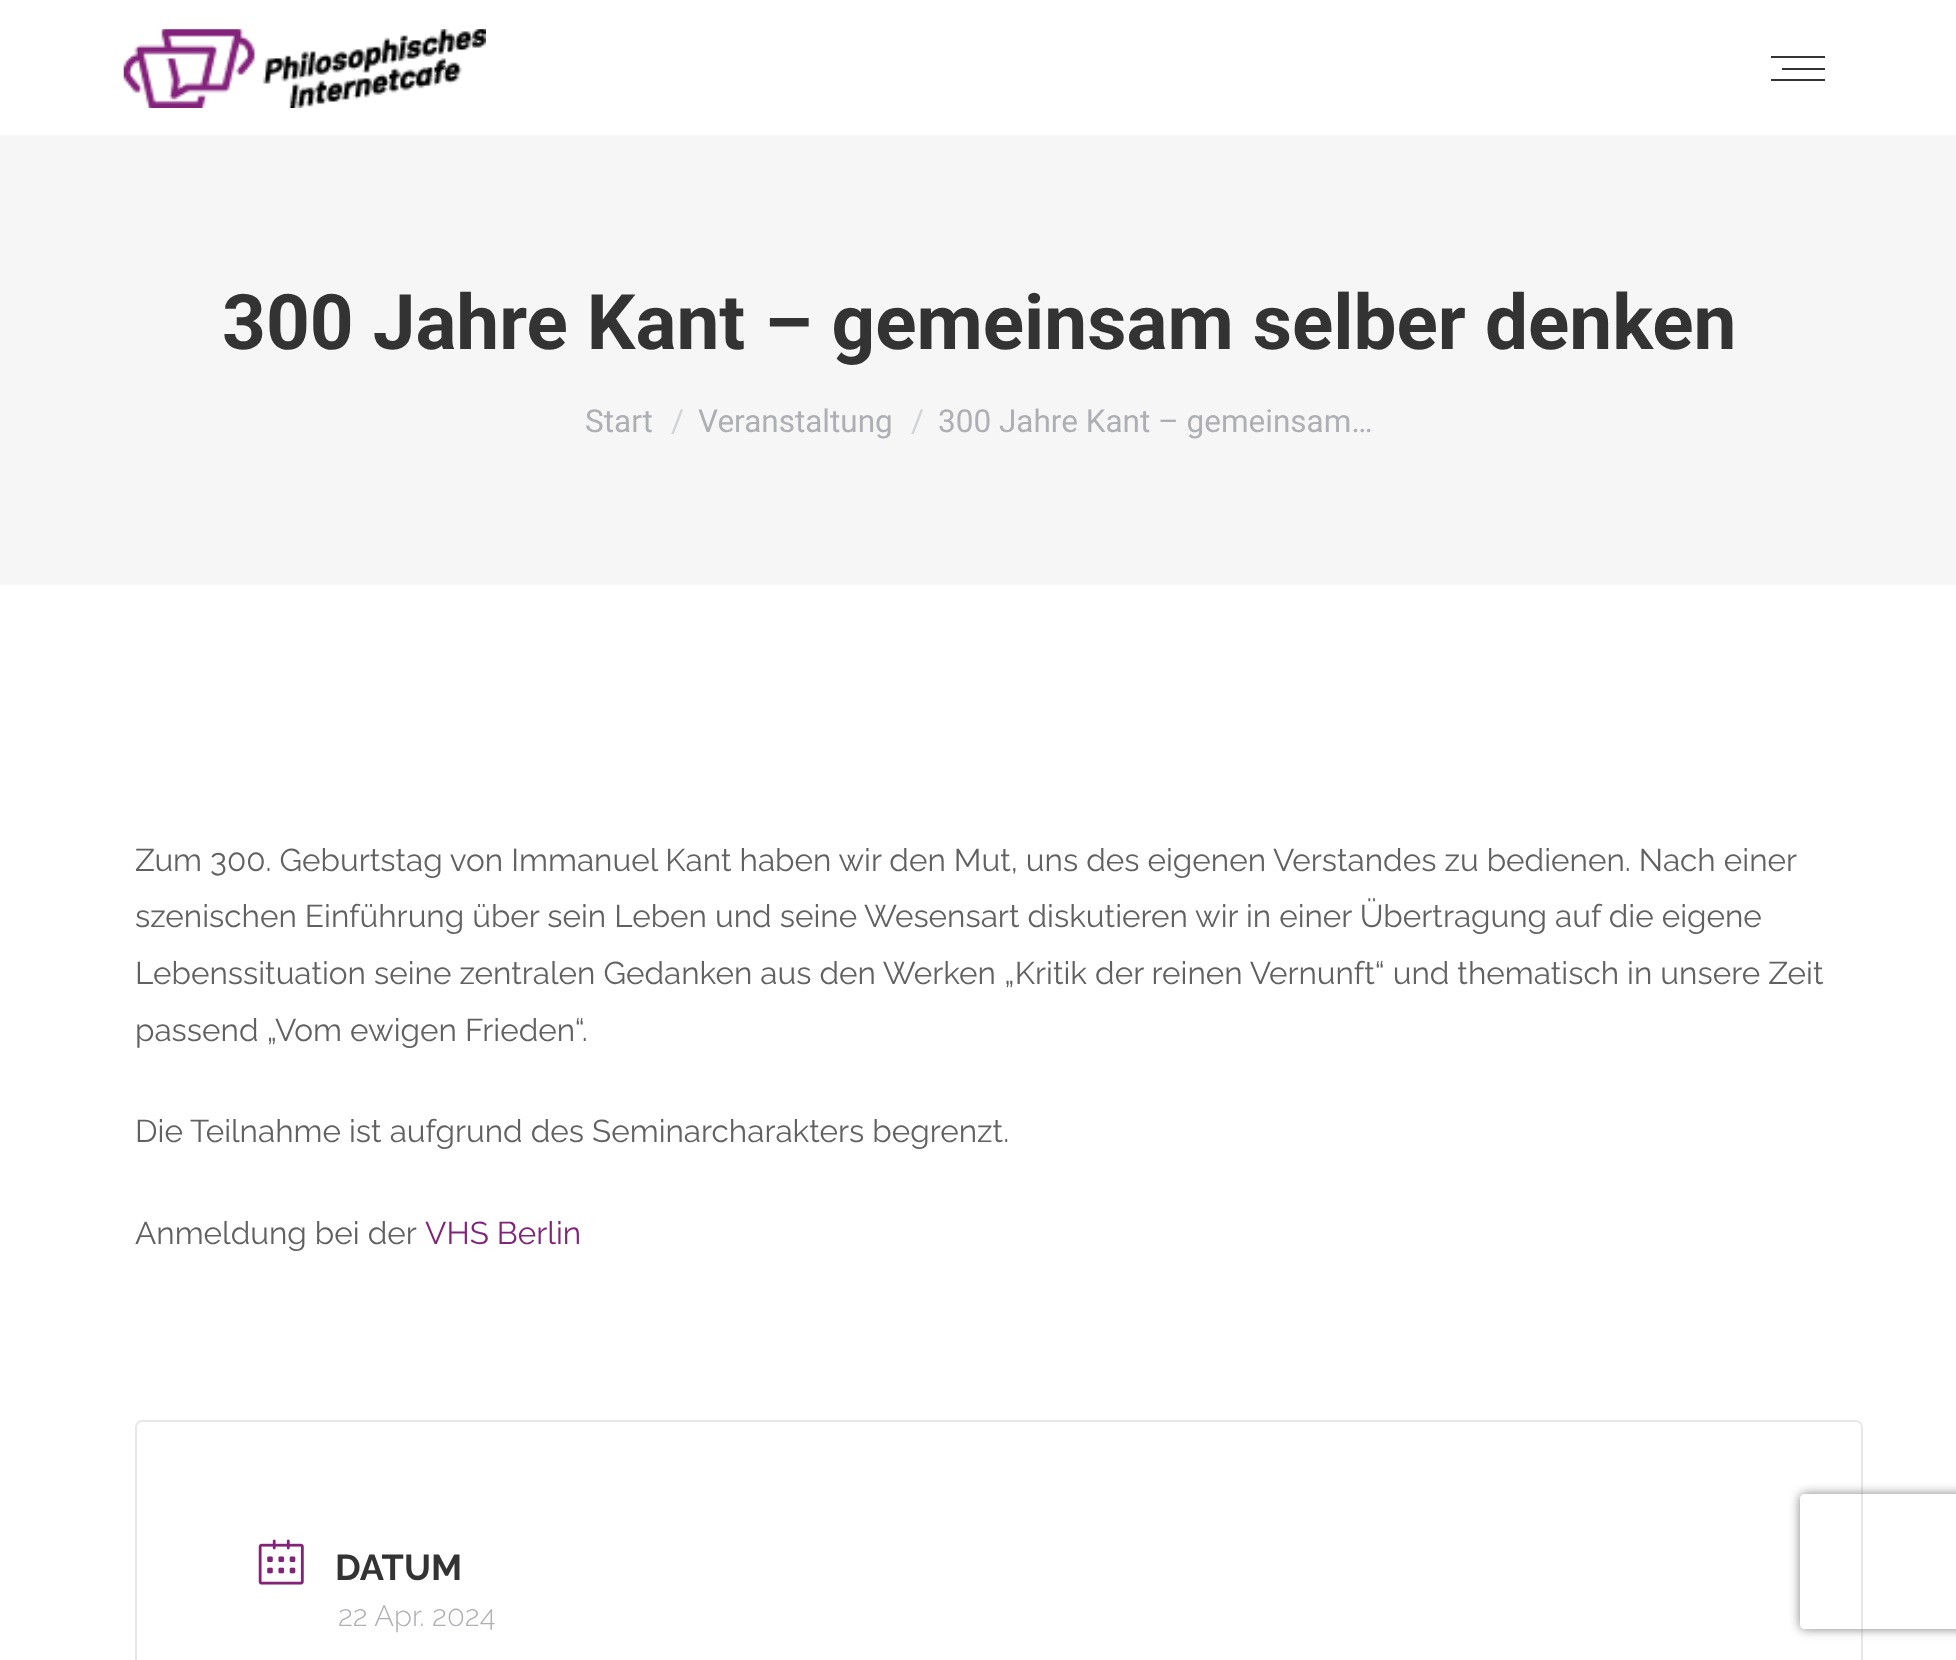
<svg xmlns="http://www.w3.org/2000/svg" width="1956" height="1660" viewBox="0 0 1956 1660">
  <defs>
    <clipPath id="clip1"><path d="M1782 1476H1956V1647H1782ZM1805 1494H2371C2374 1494 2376 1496 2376 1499V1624C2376 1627 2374 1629 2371 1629H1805C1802 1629 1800 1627 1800 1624V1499C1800 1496 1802 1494 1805 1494Z" clip-rule="evenodd"/></clipPath>
  </defs>
  <rect width="100%" height="100%" fill="rgb(255,255,255)"/>
  <image x="123" y="29" width="363" height="79" href="pic1.png"/>
  <rect x="1771" y="56" width="54" height="2" fill="rgb(51,51,51)"/>
  <rect x="1782" y="68" width="43" height="2" fill="rgb(51,51,51)"/>
  <rect x="1771" y="79" width="54" height="2" fill="rgb(51,51,51)"/>
  <rect x="0" y="135" width="1956" height="450" fill="rgb(246,246,246)"/>
  <text x="222" y="349" font-family="Roboto" font-size="76.5" font-weight="bold" fill="rgb(51,51,51)">300 Jahre Kant – gemeinsam selber denken</text>
  <text x="585" y="432" font-family="Roboto" font-size="31.5" fill="rgb(173,175,179)">Start</text>
  <text x="671" y="432" font-family="Roboto" font-size="31.5" fill="rgb(210,211,213)">/</text>
  <text x="698" y="432" font-family="Roboto" font-size="31.5" fill="rgb(173,175,179)">Veranstaltung</text>
  <text x="911" y="432" font-family="Roboto" font-size="31.5" fill="rgb(210,211,213)">/</text>
  <text x="938" y="432" font-family="Roboto" font-size="31.5" fill="rgb(173,175,179)">300 Jahre Kant – gemeinsam…</text>
  <g font-family="Raleway" font-size="31.5" font-weight="100" fill="rgb(97,97,97)">
    <text>
      <tspan x="135" y="871">Zum 300. Geburtstag von Immanuel Kant haben wir den Mut, uns des eigenen Verstandes zu bedienen. Nach einer</tspan>
      <tspan x="135" y="927">szenischen Einführung über sein Leben und seine Wesensart diskutieren wir in einer Übertragung auf die eigene</tspan>
      <tspan x="135" y="984">Lebenssituation seine zentralen Gedanken aus den Werken „Kritik der reinen Vernunft“ und thematisch in unsere Zeit</tspan>
      <tspan x="135" y="1041">passend „Vom ewigen Frieden“.</tspan>
    </text>
    <text x="135" y="1142">Die Teilnahme ist aufgrund des Seminarcharakters begrenzt.</text>
    <text x="135" y="1244">Anmeldung bei der</text>
  </g>
  <text x="425" y="1244" font-family="Raleway" font-size="31.5" font-weight="100" fill="rgb(129,36,119)">VHS Berlin</text>
  <rect x="136" y="1421" width="1726" height="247" rx="6" fill="none" stroke="rgb(230,231,232)" stroke-width="2"/>
  <image x="258" y="1539" width="46" height="46" href="pic2.png"/>
  <text x="335" y="1580" font-family="'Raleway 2'" font-size="36" font-weight="100" fill="rgb(51,51,51)">DATUM</text>
  <text x="338" y="1626" font-family="'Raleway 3'" font-size="29.25" font-weight="100" fill="rgb(173,175,179)">22 Apr. 2024</text>
  <g clip-path="url(#clip1)">
    <rect x="1800" y="1494" width="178" height="135" rx="5" fill="rgb(128,128,128)" filter="blur(5.5px)"/>
  </g>
</svg>
